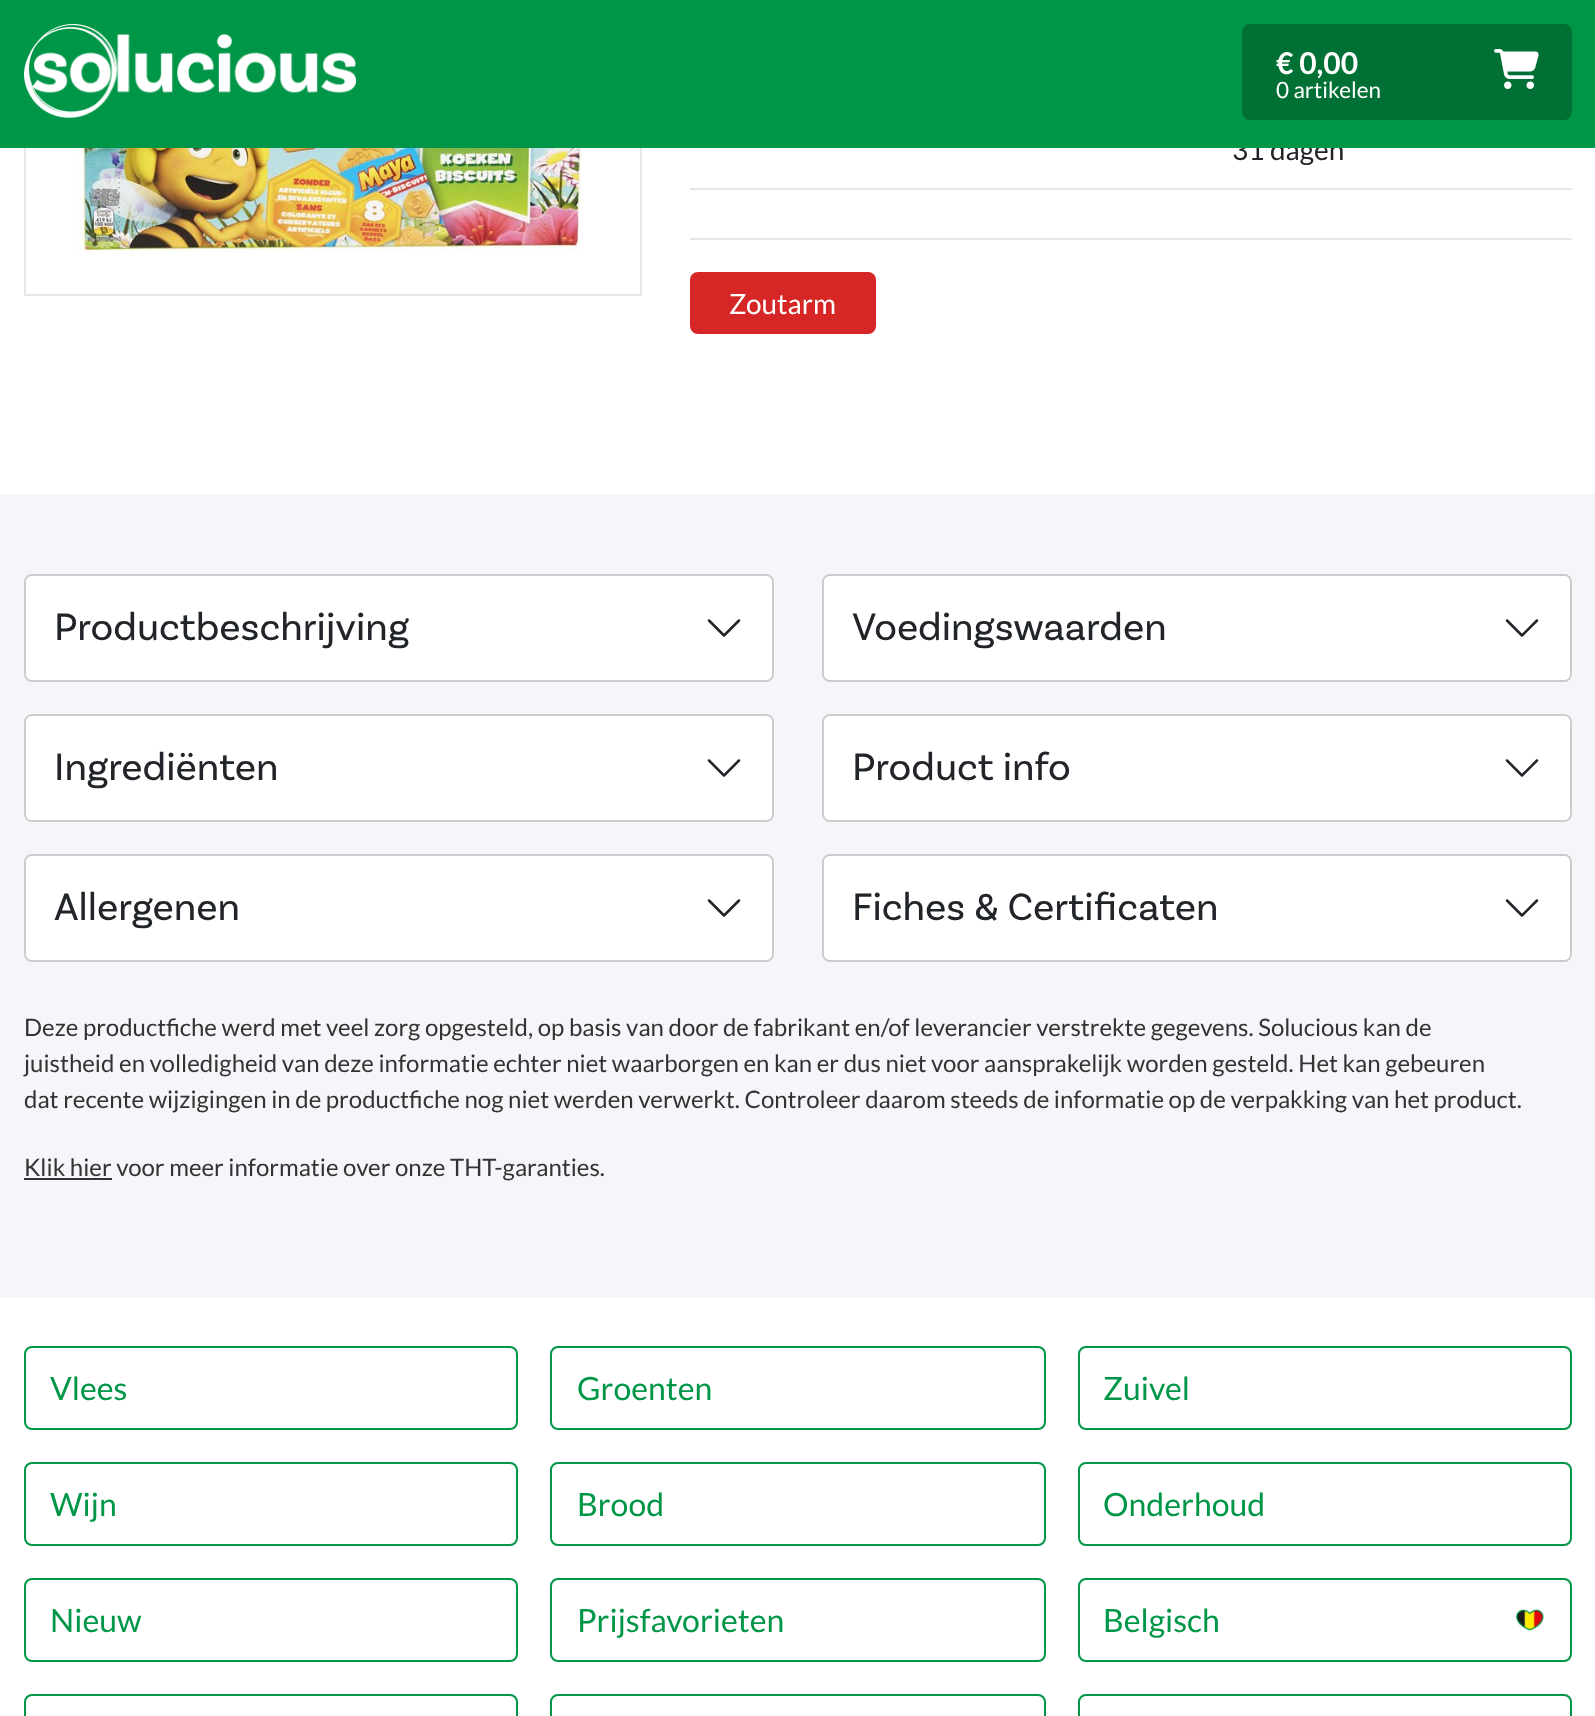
<svg xmlns="http://www.w3.org/2000/svg" width="1595" height="1716" viewBox="0 0 1595 1716">
  <rect width="100%" height="100%" fill="rgb(255,255,255)"/>
  <rect x="25" y="-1" width="616" height="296" fill="none" stroke="rgb(230,230,230)" stroke-width="2"/>
  <text x="1232" y="160" font-family="Lato" font-size="28" fill="rgb(33,37,41)">31 dagen</text>
  <rect x="0" y="0" width="1595" height="148" fill="rgb(0,150,71)"/>
  <image x="24" y="24" width="332" height="95" href="pic1.png"/>
  <rect x="1242" y="24" width="330" height="96" rx="8" fill="rgb(0,112,53)"/>
  <text x="1276" y="74" font-family="Lato" font-size="30" font-weight="bold" fill="rgb(255,255,255)">€ 0,00</text>
  <text x="1276" y="98" font-family="Lato" font-size="22.5" fill="rgb(255,255,255)">0 artikelen</text>
  <image x="1494" y="49" width="45" height="40" href="pic2.png"/>
  <image x="72" y="148" width="520" height="104" href="pic3.png"/>
  <rect x="690" y="188" width="882" height="2" fill="rgb(230,230,230)"/>
  <rect x="690" y="238" width="882" height="2" fill="rgb(230,230,230)"/>
  <rect x="690" y="272" width="186" height="62" rx="8" fill="rgb(214,38,38)"/>
  <text x="729" y="314" font-family="Lato" font-size="28" fill="rgb(255,255,255)">Zoutarm</text>
  <rect x="0" y="494" width="1595" height="804" fill="rgb(246,246,250)"/>
  <rect x="25" y="575" width="748" height="106" rx="7" fill="none" stroke="rgb(204,204,204)" stroke-width="2"/>
  <rect x="26" y="576" width="746" height="104" rx="6" fill="rgb(255,255,255)"/>
  <text x="54" y="640" font-family="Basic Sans" font-size="40" fill="rgb(33,37,41)">Productbeschrijving</text>
  <path d="M709 620.5L724 635.5L739 620.5" fill="none" stroke="rgb(33,37,41)" stroke-width="2.5" stroke-linecap="round" stroke-linejoin="round"/>
  <rect x="25" y="715" width="748" height="106" rx="7" fill="none" stroke="rgb(204,204,204)" stroke-width="2"/>
  <rect x="26" y="716" width="746" height="104" rx="6" fill="rgb(255,255,255)"/>
  <text x="54" y="780" font-family="Basic Sans" font-size="40" fill="rgb(33,37,41)">Ingrediënten</text>
  <path d="M709 760.5L724 775.5L739 760.5" fill="none" stroke="rgb(33,37,41)" stroke-width="2.5" stroke-linecap="round" stroke-linejoin="round"/>
  <rect x="25" y="855" width="748" height="106" rx="7" fill="none" stroke="rgb(204,204,204)" stroke-width="2"/>
  <rect x="26" y="856" width="746" height="104" rx="6" fill="rgb(255,255,255)"/>
  <text x="54" y="920" font-family="Basic Sans" font-size="40" fill="rgb(33,37,41)">Allergenen</text>
  <path d="M709 900.5L724 915.5L739 900.5" fill="none" stroke="rgb(33,37,41)" stroke-width="2.5" stroke-linecap="round" stroke-linejoin="round"/>
  <rect x="823" y="575" width="748" height="106" rx="7" fill="none" stroke="rgb(204,204,204)" stroke-width="2"/>
  <rect x="824" y="576" width="746" height="104" rx="6" fill="rgb(255,255,255)"/>
  <text x="852" y="640" font-family="Basic Sans" font-size="40" fill="rgb(33,37,41)">Voedingswaarden</text>
  <path d="M1507 620.5L1522 635.5L1537 620.5" fill="none" stroke="rgb(33,37,41)" stroke-width="2.5" stroke-linecap="round" stroke-linejoin="round"/>
  <rect x="823" y="715" width="748" height="106" rx="7" fill="none" stroke="rgb(204,204,204)" stroke-width="2"/>
  <rect x="824" y="716" width="746" height="104" rx="6" fill="rgb(255,255,255)"/>
  <text x="852" y="780" font-family="Basic Sans" font-size="40" fill="rgb(33,37,41)">Product info</text>
  <path d="M1507 760.5L1522 775.5L1537 760.5" fill="none" stroke="rgb(33,37,41)" stroke-width="2.5" stroke-linecap="round" stroke-linejoin="round"/>
  <rect x="823" y="855" width="748" height="106" rx="7" fill="none" stroke="rgb(204,204,204)" stroke-width="2"/>
  <rect x="824" y="856" width="746" height="104" rx="6" fill="rgb(255,255,255)"/>
  <text x="852" y="920" font-family="Basic Sans" font-size="40" fill="rgb(33,37,41)">Fiches &amp; Certificaten</text>
  <path d="M1507 900.5L1522 915.5L1537 900.5" fill="none" stroke="rgb(33,37,41)" stroke-width="2.5" stroke-linecap="round" stroke-linejoin="round"/>
  <g font-family="Lato" font-size="24" fill="rgb(51,51,51)">
    <text>
      <tspan x="24" y="1036">Deze productfiche werd met veel zorg opgesteld, op basis van door de fabrikant en/of leverancier verstrekte gegevens. Solucious kan de</tspan>
      <tspan x="24" y="1072">juistheid en volledigheid van deze informatie echter niet waarborgen en kan er dus niet voor aansprakelijk worden gesteld. Het kan gebeuren</tspan>
      <tspan x="24" y="1108">dat recente wijzigingen in de productfiche nog niet werden verwerkt. Controleer daarom steeds de informatie op de verpakking van het product.</tspan>
    </text>
  </g>
  <rect x="24" y="1178" width="88" height="2" fill="rgb(51,51,51)"/>
  <text x="24" y="1176" font-family="Lato" font-size="24" fill="rgb(51,51,51)">Klik hier voor meer informatie over onze THT-garanties.</text>
  <rect x="25" y="1347" width="492" height="82" rx="7" fill="none" stroke="rgb(0,150,71)" stroke-width="2"/>
  <text x="50" y="1400" font-family="Lato" font-size="32" fill="rgb(0,150,71)">Vlees</text>
  <rect x="551" y="1347" width="494" height="82" rx="7" fill="none" stroke="rgb(0,150,71)" stroke-width="2"/>
  <text x="577" y="1400" font-family="Lato" font-size="32" fill="rgb(0,150,71)">Groenten</text>
  <rect x="1079" y="1347" width="492" height="82" rx="7" fill="none" stroke="rgb(0,150,71)" stroke-width="2"/>
  <text x="1103" y="1400" font-family="Lato" font-size="32" fill="rgb(0,150,71)">Zuivel</text>
  <rect x="25" y="1463" width="492" height="82" rx="7" fill="none" stroke="rgb(0,150,71)" stroke-width="2"/>
  <text x="50" y="1516" font-family="Lato" font-size="32" fill="rgb(0,150,71)">Wijn</text>
  <rect x="551" y="1463" width="494" height="82" rx="7" fill="none" stroke="rgb(0,150,71)" stroke-width="2"/>
  <text x="577" y="1516" font-family="Lato" font-size="32" fill="rgb(0,150,71)">Brood</text>
  <rect x="1079" y="1463" width="492" height="82" rx="7" fill="none" stroke="rgb(0,150,71)" stroke-width="2"/>
  <text x="1103" y="1516" font-family="Lato" font-size="32" fill="rgb(0,150,71)">Onderhoud</text>
  <rect x="25" y="1579" width="492" height="82" rx="7" fill="none" stroke="rgb(0,150,71)" stroke-width="2"/>
  <text x="50" y="1632" font-family="Lato" font-size="32" fill="rgb(0,150,71)">Nieuw</text>
  <rect x="551" y="1579" width="494" height="82" rx="7" fill="none" stroke="rgb(0,150,71)" stroke-width="2"/>
  <text x="577" y="1632" font-family="Lato" font-size="32" fill="rgb(0,150,71)">Prijsfavorieten</text>
  <rect x="1079" y="1579" width="492" height="82" rx="7" fill="none" stroke="rgb(0,150,71)" stroke-width="2"/>
  <text x="1103" y="1632" font-family="Lato" font-size="32" fill="rgb(0,150,71)">Belgisch</text>
  <image x="1516" y="1609" width="28" height="22" href="pic4.png"/>
  <rect x="25" y="1695" width="492" height="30" rx="7" fill="none" stroke="rgb(0,150,71)" stroke-width="2"/>
  <rect x="551" y="1695" width="494" height="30" rx="7" fill="none" stroke="rgb(0,150,71)" stroke-width="2"/>
  <rect x="1079" y="1695" width="492" height="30" rx="7" fill="none" stroke="rgb(0,150,71)" stroke-width="2"/>
</svg>
